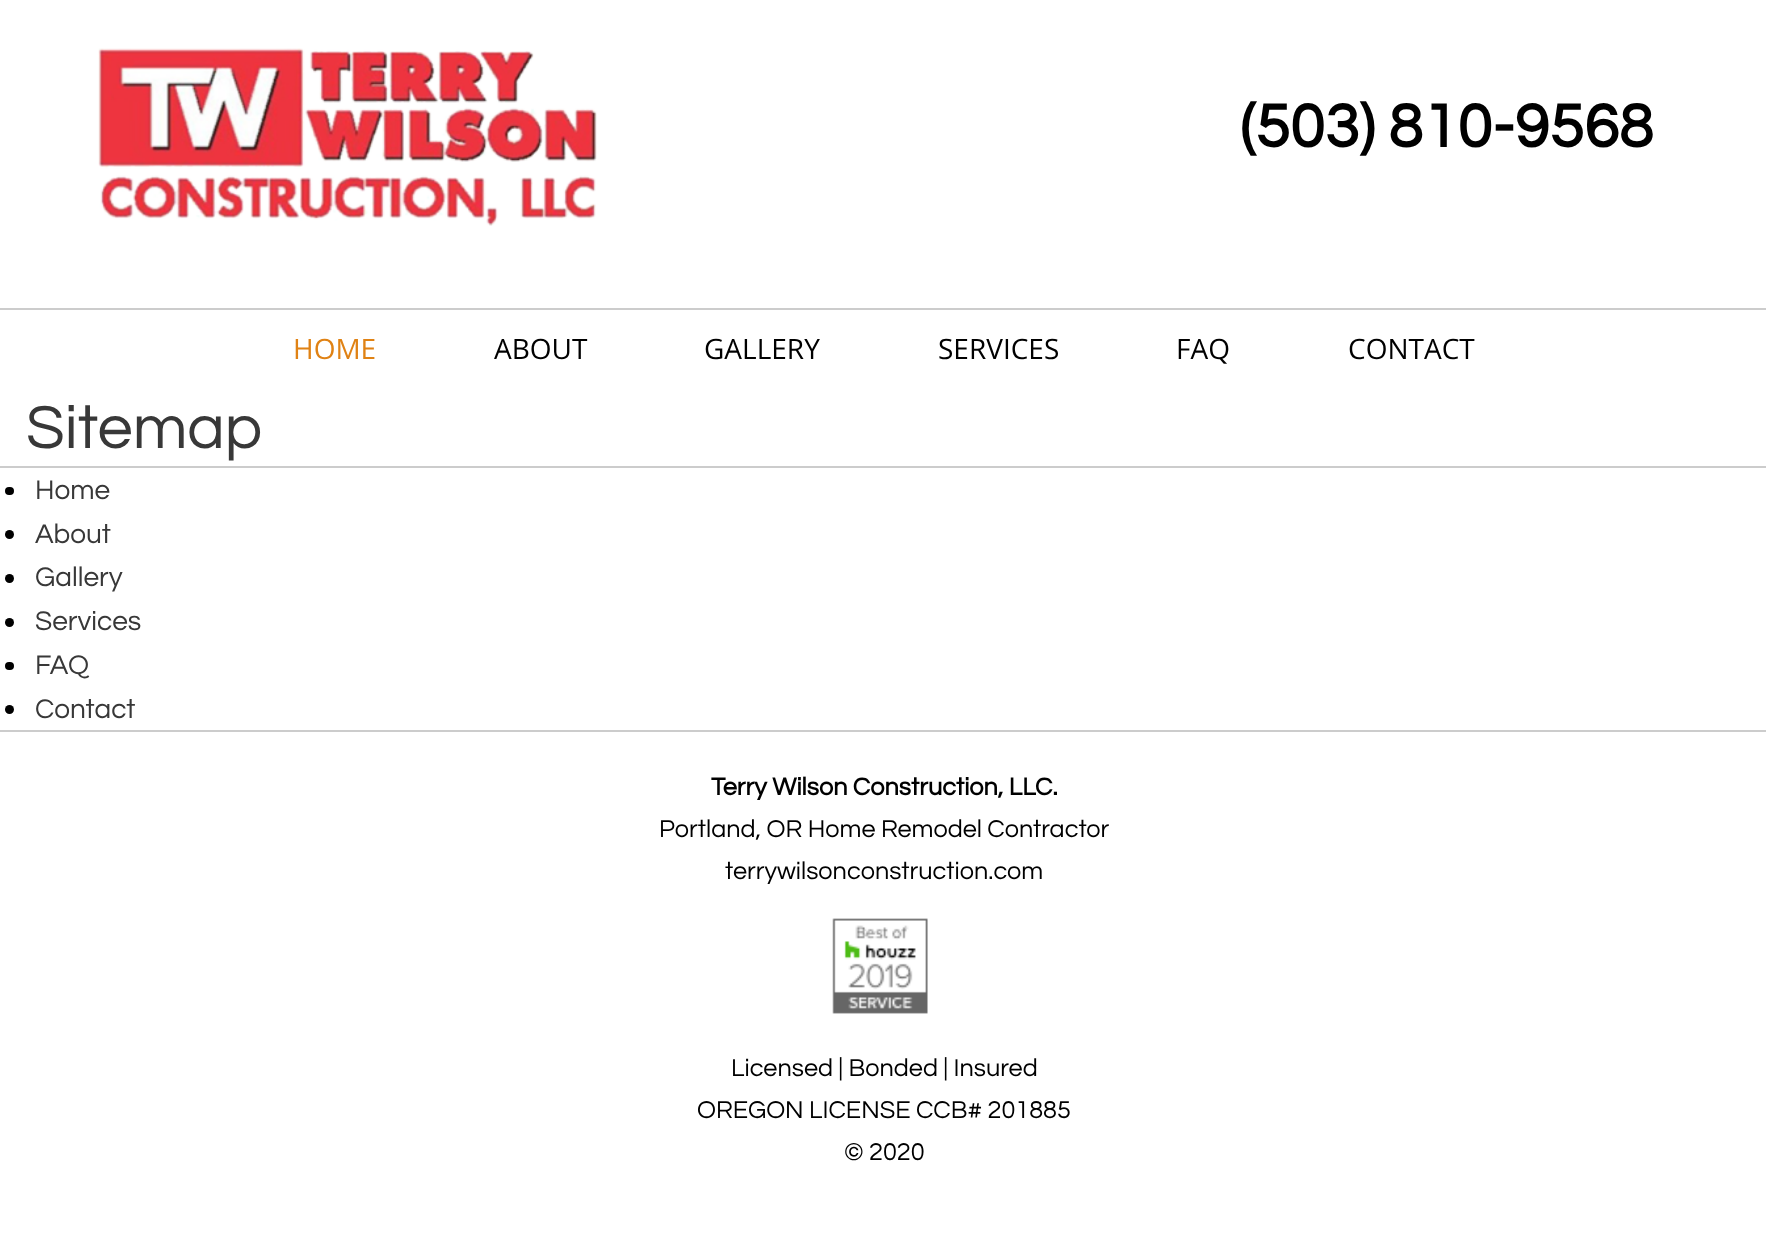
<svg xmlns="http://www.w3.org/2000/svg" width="1766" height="1255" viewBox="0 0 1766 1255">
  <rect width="100%" height="100%" fill="rgb(255,255,255)"/>
  <image x="98" y="48" width="499" height="178" href="pic1.png"/>
  <text x="1240" y="147" font-family="Questrial" font-size="63" font-weight="bold" fill="rgb(0,0,0)">(503) 810-9568</text>
  <rect x="0" y="308" width="1766" height="2" fill="rgb(204,204,204)"/>
  <text x="293" y="359" font-family="Open Sans" font-size="28" fill="rgb(224,130,20)">HOME</text>
  <g font-family="Open Sans" font-size="28" fill="rgb(0,0,0)">
    <text x="494" y="359">ABOUT</text>
    <text x="704" y="359">GALLERY</text>
    <text x="938" y="359">SERVICES</text>
    <text x="1176" y="359">FAQ</text>
    <text x="1348" y="359">CONTACT</text>
  </g>
  <rect x="0" y="466" width="1766" height="2" fill="rgb(204,204,204)"/>
  <text x="26" y="448" font-family="Questrial" font-size="63" fill="rgb(56,56,56)">Sitemap</text>
  <rect x="5" y="487" width="9" height="8" rx="4" fill="rgb(0,0,0)"/>
  <text x="35" y="499" font-family="Questrial" font-size="28" fill="rgb(56,56,56)">Home</text>
  <circle cx="9.5" cy="534.5" r="4.5" fill="rgb(0,0,0)"/>
  <text x="35" y="543" font-family="Questrial" font-size="28" fill="rgb(56,56,56)">About</text>
  <circle cx="9.5" cy="578.5" r="4.5" fill="rgb(0,0,0)"/>
  <text x="35" y="586" font-family="Questrial" font-size="28" fill="rgb(56,56,56)">Gallery</text>
  <circle cx="9.5" cy="622.5" r="4.5" fill="rgb(0,0,0)"/>
  <text x="35" y="630" font-family="Questrial" font-size="28" fill="rgb(56,56,56)">Services</text>
  <rect x="5" y="662" width="9" height="8" rx="4" fill="rgb(0,0,0)"/>
  <text x="35" y="674" font-family="Questrial" font-size="28" fill="rgb(56,56,56)">FAQ</text>
  <circle cx="9.5" cy="709.5" r="4.5" fill="rgb(0,0,0)"/>
  <text x="35" y="718" font-family="Questrial" font-size="28" fill="rgb(56,56,56)">Contact</text>
  <rect x="0" y="730" width="1766" height="2" fill="rgb(204,204,204)"/>
  <text x="711" y="795" font-family="Questrial" font-size="25.25" font-weight="bold" fill="rgb(0,0,0)">Terry Wilson Construction, LLC.</text>
  <g font-family="Questrial" font-size="25.25" fill="rgb(0,0,0)">
    <text x="659" y="837">Portland, OR Home Remodel Contractor</text>
    <text x="725" y="879">terrywilsonconstruction.com</text>
  </g>
  <image x="832" y="918" width="96" height="96" href="pic2.png"/>
  <g font-family="Questrial" font-size="25.25" fill="rgb(0,0,0)">
    <text x="731" y="1076">Licensed | Bonded | Insured</text>
    <text x="697" y="1118">OREGON LICENSE CCB# 201885</text>
    <text x="844" y="1160">© 2020</text>
  </g>
</svg>
